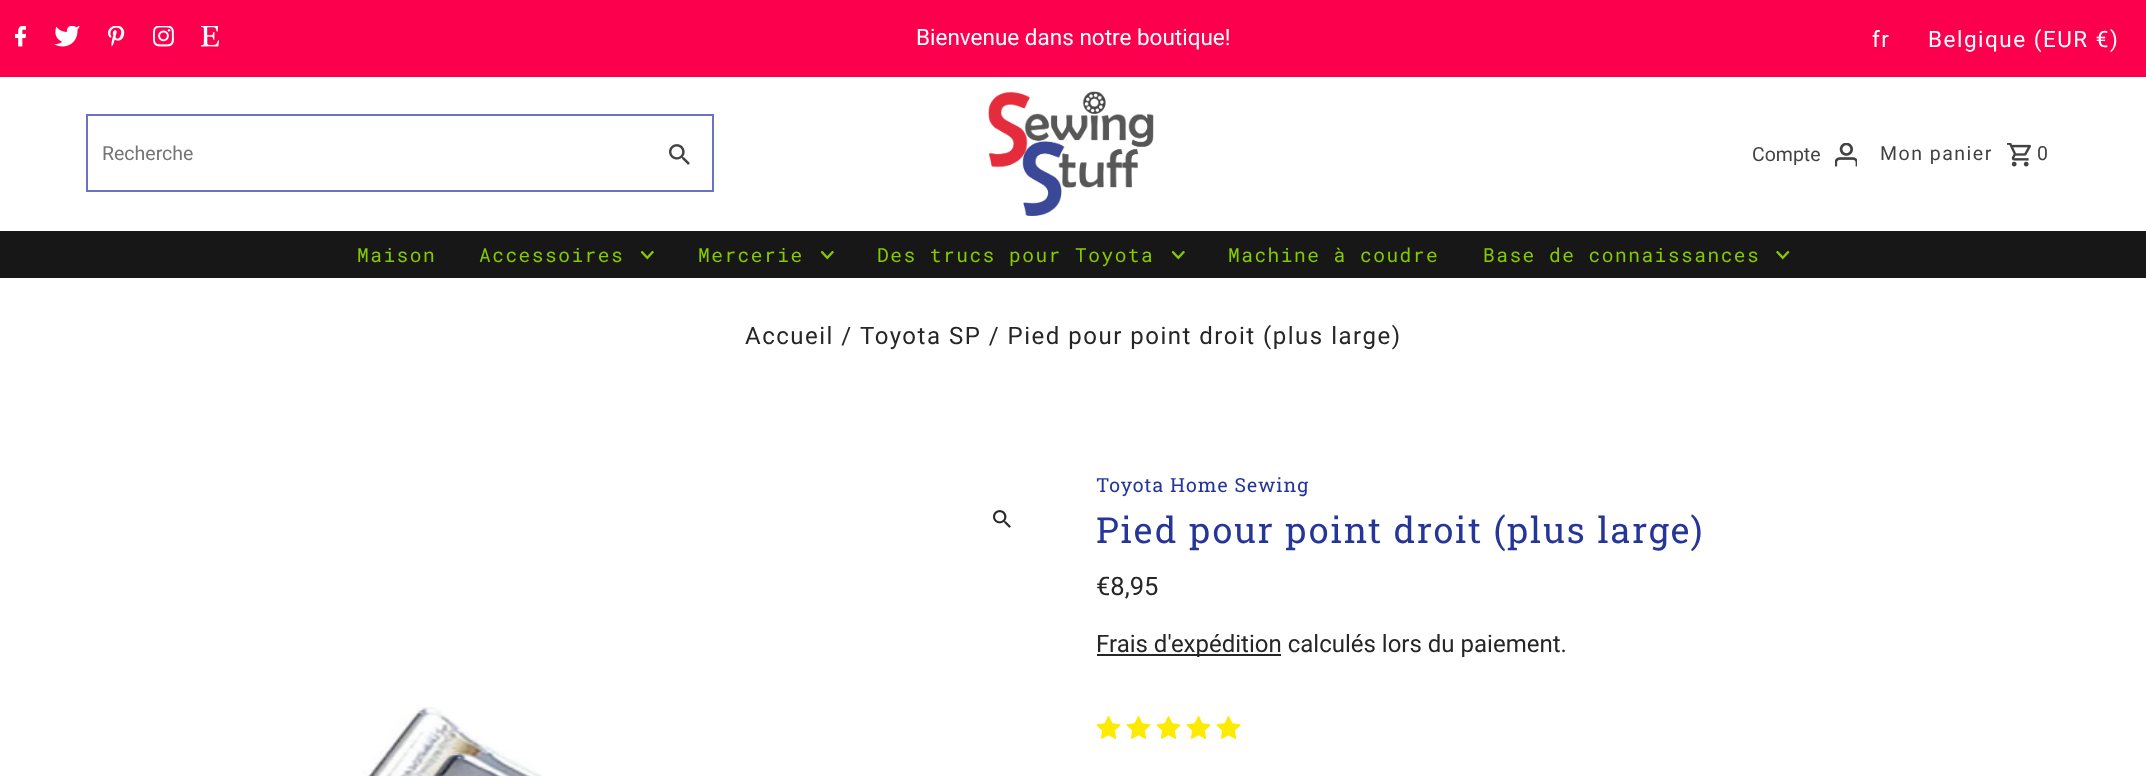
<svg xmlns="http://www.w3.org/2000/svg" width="2146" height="776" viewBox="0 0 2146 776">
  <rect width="100%" height="100%" fill="rgb(255,255,255)"/>
  <rect x="0" y="0" width="2146" height="77" fill="rgb(252,0,78)"/>
  <image x="15" y="26" width="11" height="21" href="pic1.png"/>
  <image x="54" y="26" width="26" height="21" href="pic2.png"/>
  <image x="108" y="26" width="17" height="21" href="pic3.png"/>
  <image x="153" y="26" width="21" height="21" href="pic4.png"/>
  <image x="201" y="26" width="18" height="21" href="pic5.png"/>
  <text x="916" y="45" font-family="Roboto" font-size="22.5" fill="rgb(255,255,255)">Bienvenue dans notre boutique!</text>
  <g font-family="Roboto" font-size="22.5" letter-spacing="1.5" fill="rgb(255,255,255)">
    <text x="1872" y="47">fr</text>
    <text x="1928" y="47">Belgique (EUR €)</text>
  </g>
  <rect x="87" y="115" width="626" height="76" fill="none" stroke="rgb(104,116,195)" stroke-width="2"/>
  <text x="102" y="160" font-family="Roboto" font-size="19.5" fill="rgb(117,117,117)">Recherche</text>
  <image x="669" y="144" width="21" height="21" href="pic6.png"/>
  <image x="988" y="91" width="166" height="125" href="pic7.png"/>
  <text x="1752" y="161" font-family="Roboto" font-size="19.5" fill="rgb(66,66,66)">Compte</text>
  <image x="1835" y="143" width="22" height="24" href="pic8.png"/>
  <text x="1880" y="160" font-family="Roboto" font-size="19.5" letter-spacing="1.5" fill="rgb(66,66,66)">Mon panier</text>
  <image x="2007" y="143" width="24" height="24" href="pic9.png"/>
  <text x="2037" y="160" font-family="Roboto" font-size="19.5" letter-spacing="1.5" fill="rgb(66,66,66)">0</text>
  <rect x="0" y="231" width="2146" height="47" fill="rgb(23,23,23)"/>
  <g font-family="Roboto Mono" font-size="19.5" letter-spacing="1.5" fill="rgb(133,202,0)">
    <text x="357" y="262">Maison</text>
    <text x="479" y="262">Accessoires</text>
  </g>
  <image x="641" y="251" width="13" height="9" href="pic10.png"/>
  <text x="698" y="262" font-family="Roboto Mono" font-size="19.5" letter-spacing="1.5" fill="rgb(133,202,0)">Mercerie</text>
  <image x="821" y="251" width="13" height="9" href="pic10.png"/>
  <text x="877" y="262" font-family="Roboto Mono" font-size="19.5" letter-spacing="1.5" fill="rgb(133,202,0)">Des trucs pour Toyota</text>
  <image x="1172" y="251" width="13" height="9" href="pic10.png"/>
  <g font-family="Roboto Mono" font-size="19.5" letter-spacing="1.5" fill="rgb(133,202,0)">
    <text x="1228" y="262">Machine à coudre</text>
    <text x="1483" y="262">Base de connaissances</text>
  </g>
  <image x="1776" y="251" width="14" height="9" href="pic11.png"/>
  <g font-family="Roboto" font-size="24" letter-spacing="1.5" fill="rgb(38,38,38)">
    <text x="745" y="344">Accueil /</text>
    <text x="860" y="344">Toyota SP / Pied pour point droit (plus large)</text>
  </g>
  <image x="993" y="510" width="18" height="18" href="pic12.png"/>
  <image x="362" y="707" width="181" height="69" href="pic13.png"/>
  <text x="1096" y="492" font-family="Roboto Slab" font-size="19.5" letter-spacing="1" fill="rgb(37,53,152)">Toyota Home Sewing</text>
  <text x="1096" y="543" font-family="Roboto Slab" font-size="36" letter-spacing="1.8" fill="rgb(37,53,152)">Pied pour point droit (plus large)</text>
  <text x="1096" y="595" font-family="Roboto" font-size="25.5" fill="rgb(38,38,38)">€8,95</text>
  <rect x="1097" y="654" width="184" height="2" fill="rgb(38,38,38)"/>
  <text x="1096" y="652" font-family="Roboto" font-size="24" fill="rgb(38,38,38)">Frais d'expédition calculés lors du paiement.</text>
  <image x="1096" y="716" width="25" height="23" href="pic14.png"/>
  <image x="1126" y="716" width="25" height="23" href="pic14.png"/>
  <image x="1156" y="716" width="25" height="23" href="pic14.png"/>
  <image x="1186" y="716" width="25" height="23" href="pic14.png"/>
  <image x="1216" y="716" width="25" height="23" href="pic14.png"/>
</svg>
